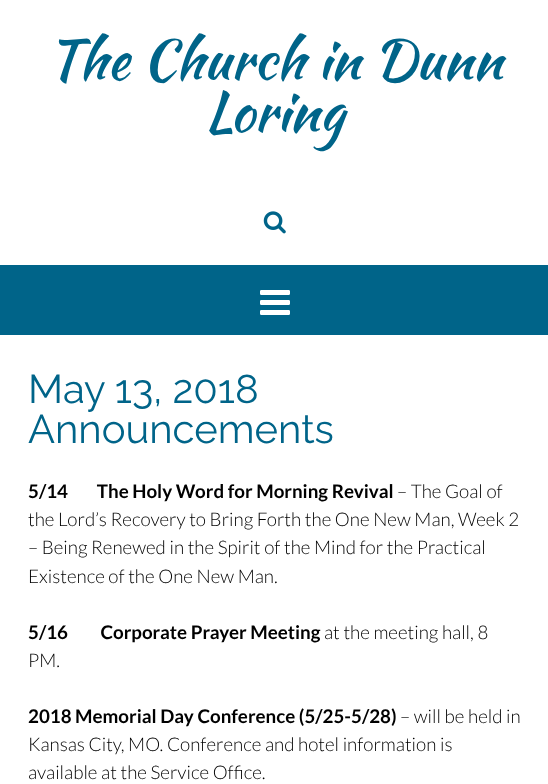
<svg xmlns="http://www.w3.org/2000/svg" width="548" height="784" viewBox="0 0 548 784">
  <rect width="100%" height="100%" fill="rgb(255,255,255)"/>
  <g font-family="Kaushan Script" font-size="55" fill="rgb(0,100,137)">
    <text x="47" y="79">The Church in Dunn</text>
    <text x="205" y="131">Loring</text>
  </g>
  <image x="263" y="211" width="23" height="23" href="pic1.png"/>
  <rect x="0" y="265" width="548" height="70" fill="rgb(0,100,137)"/>
  <image x="260" y="290" width="30" height="25" href="pic2.png"/>
  <g font-family="Raleway" font-size="40" fill="rgb(0,100,137)">
    <text>
      <tspan x="28" y="403">May 13, 2018</tspan>
      <tspan x="28" y="443">Announcements</tspan>
    </text>
  </g>
  <text x="28" y="498" font-family="Lato" font-size="18.75" font-weight="bold" fill="rgb(0,0,0)" xml:space="preserve">5/14        The Holy Word for Morning Revival</text>
  <g font-family="Lato" font-size="18.75" font-weight="300" fill="rgb(0,0,0)">
    <text x="397" y="498">– The Goal of</text>
    <text>
      <tspan x="28" y="526">the Lord’s Recovery to Bring Forth the One New Man, Week 2</tspan>
      <tspan x="28" y="554">– Being Renewed in the Spirit of the Mind for the Practical</tspan>
      <tspan x="28" y="583">Existence of the One New Man.</tspan>
    </text>
  </g>
  <text x="28" y="639" font-family="Lato" font-size="18.75" font-weight="bold" fill="rgb(0,0,0)" xml:space="preserve">5/16         Corporate Prayer Meeting</text>
  <g font-family="Lato" font-size="18.75" font-weight="300" fill="rgb(0,0,0)">
    <text x="324" y="639">at the meeting hall, 8</text>
    <text x="28" y="667">PM.</text>
  </g>
  <text x="28" y="723" font-family="Lato" font-size="18.75" font-weight="bold" fill="rgb(0,0,0)">2018 Memorial Day Conference (5/25-5/28)</text>
  <g font-family="Lato" font-size="18.75" font-weight="300" fill="rgb(0,0,0)">
    <text x="400" y="723">– will be held in</text>
    <text>
      <tspan x="28" y="751">Kansas City, MO. Conference and hotel information is</tspan>
      <tspan x="28" y="779">available at the Service Office.</tspan>
    </text>
  </g>
</svg>
